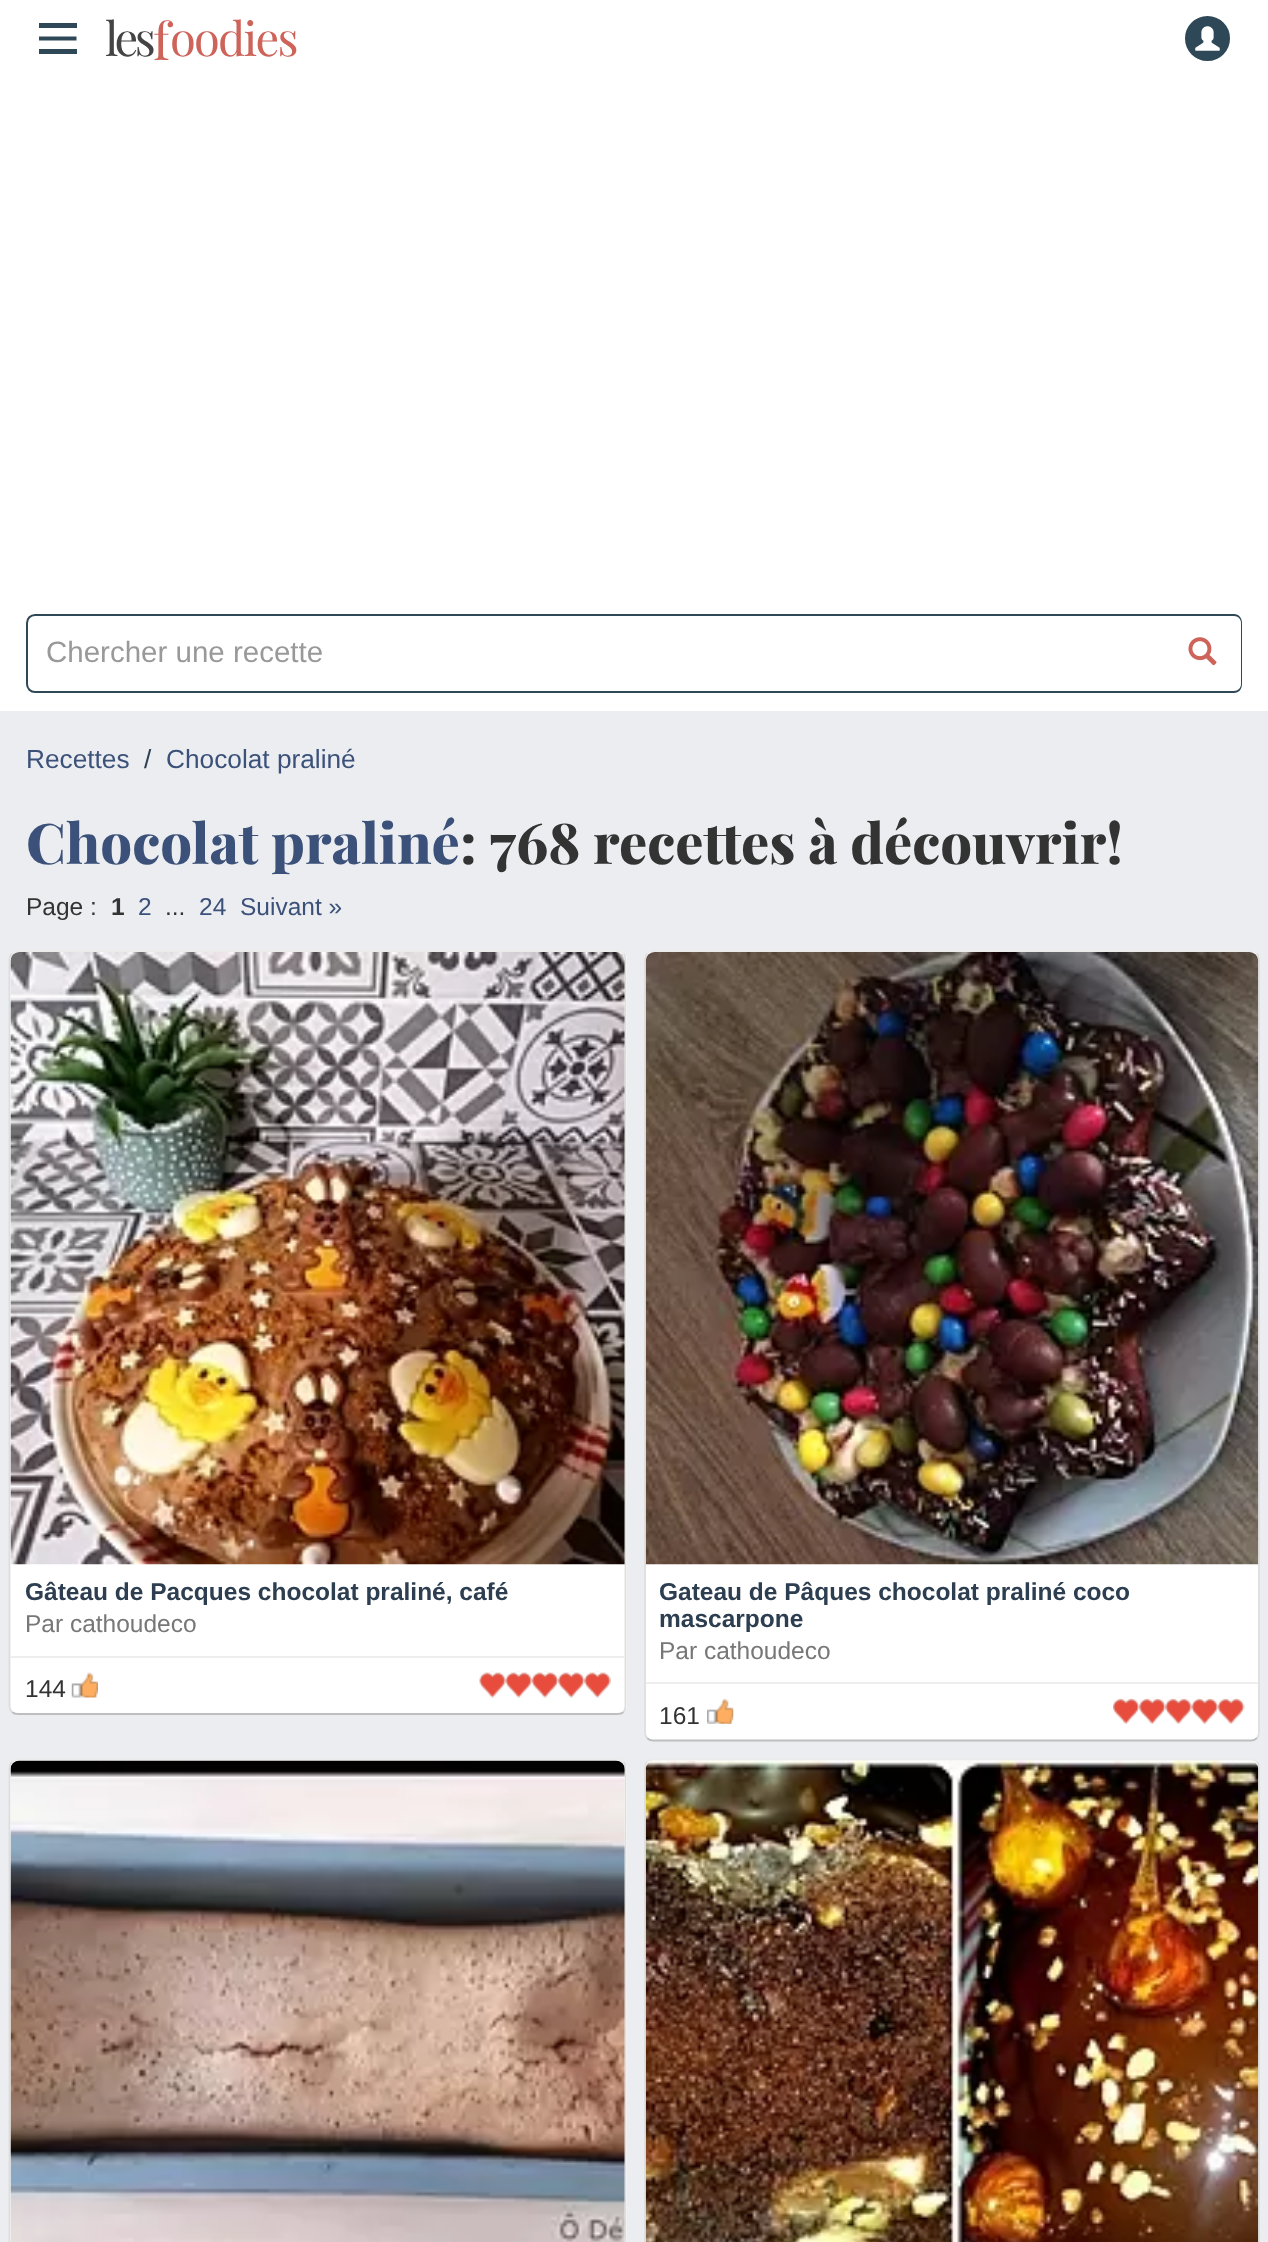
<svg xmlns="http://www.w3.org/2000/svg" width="1268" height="2242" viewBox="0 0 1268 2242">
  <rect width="100%" height="100%" fill="rgb(255,255,255)"/>
  <rect x="39" y="23" width="38" height="5" fill="rgb(47,72,88)"/>
  <path d="M39 38.5H76.5" fill="none" stroke="rgb(47,72,88)" stroke-width="3.8"/>
  <rect x="39" y="49" width="38" height="5" fill="rgb(47,72,88)"/>
  <text x="105" y="56" font-family="Playfair Display" font-size="47" letter-spacing="-3.5" fill="rgb(68,68,68)">les</text>
  <text x="153" y="60" font-family="Playfair Display" font-size="51" letter-spacing="-1.75" fill="rgb(205,99,89)">f</text>
  <text x="170" y="56" font-family="Playfair Display" font-size="47" letter-spacing="-3.5" fill="rgb(205,99,89)">o</text>
  <text x="194" y="56" font-family="Playfair Display" font-size="47" letter-spacing="-1.75" fill="rgb(205,99,89)">odies</text>
  <circle cx="1207.5" cy="38.5" r="21.5" fill="rgb(47,72,88)" stroke="rgb(47,72,88)" stroke-width="2"/>
  <image x="1195" y="26" width="25" height="25" href="pic1.png"/>
  <path d="M35 615H1165V692H35C30.5 692 27 688.5 27 684V623C27 618.5 30.5 615 35 615Z" fill="none" stroke="rgb(47,72,88)" stroke-width="2"/>
  <text x="46" y="662" font-family="Liberation Sans" font-size="29.5" fill="rgb(153,153,153)">Chercher une recette</text>
  <path d="M1164 614H1234C1239 614 1243 618 1243 623V684C1243 689 1239 693 1234 693H1164Z" fill="rgb(255,255,255)"/>
  <path d="M1164 614H1234C1239 614 1242 618 1242 623V684C1242 689 1239 693 1234 693H1164ZM1164 616H1234C1238 616 1241 619 1241 623V684C1241 688 1238 691 1234 691H1164Z" fill="rgb(47,72,88)" fill-rule="evenodd"/>
  <image x="1188" y="637" width="29" height="29" href="pic2.png"/>
  <rect x="0" y="711" width="1268" height="1531" fill="rgb(235,237,240)"/>
  <text x="26" y="768" font-family="Liberation Sans" font-size="26.25" fill="rgb(60,81,121)">Recettes</text>
  <text x="144" y="768" font-family="Liberation Sans" font-size="26.25" fill="rgb(44,62,80)">/</text>
  <text x="166" y="768" font-family="Liberation Sans" font-size="26.25" fill="rgb(60,81,121)">Chocolat praliné</text>
  <text x="26" y="864" font-family="Playfair Display" font-size="56" font-weight="800" fill="rgb(60,81,121)">Chocolat praliné</text>
  <text x="460" y="864" font-family="Playfair Display" font-size="56" font-weight="800" fill="rgb(51,51,51)">: 768 recettes à découvrir!</text>
  <text x="26" y="915" font-family="Liberation Sans" font-size="24.5" fill="rgb(51,51,51)">Page :</text>
  <text x="111" y="915" font-family="Liberation Sans" font-size="24.5" font-weight="bold" fill="rgb(51,51,51)">1</text>
  <text x="138" y="915" font-family="Liberation Sans" font-size="24.5" fill="rgb(60,81,121)">2</text>
  <text x="165" y="915" font-family="Liberation Sans" font-size="24.5" fill="rgb(51,51,51)">...</text>
  <g font-family="Liberation Sans" font-size="24.5" fill="rgb(60,81,121)">
    <text x="199" y="915">24</text>
    <text x="240" y="915">Suivant »</text>
  </g>
  <rect x="9" y="950" width="618" height="765" rx="9" fill="rgb(255,255,255)"/>
  <path d="M12 953.5C13.5 952 15.5 951 17.5 951H618C620 951 622 952 623.5 953.5" fill="none" stroke="rgb(235,235,235)" stroke-width="1.8"/>
  <path d="M623.5 953.5C625 955 625.5 957 625.5 959V1706C625.5 1708.5 625 1710.5 623.5 1712" fill="none" stroke="rgb(221,221,221)" stroke-width="1.8"/>
  <path d="M623.5 1712C622 1713.5 620 1714 618 1714H17.5C15.5 1714 13.5 1713.5 12 1712" fill="none" stroke="rgb(190,190,190)" stroke-width="1.8"/>
  <path d="M12 1712C10.5 1710.5 9.5 1708.5 9.5 1706V959C9.5 957 10.5 955 12 953.5" fill="none" stroke="rgb(221,221,221)" stroke-width="1.8"/>
  <image x="10" y="952" width="615" height="613" href="pic3.png"/>
  <text x="25" y="1600" font-family="Liberation Sans" font-size="24.5" font-weight="bold" fill="rgb(44,62,80)">Gâteau de Pacques chocolat praliné, café</text>
  <text x="25" y="1632" font-family="Liberation Sans" font-size="24.5" fill="rgb(119,119,119)">Par cathoudeco</text>
  <rect x="11" y="1656" width="614" height="2" fill="rgb(238,238,238)"/>
  <text x="25" y="1697" font-family="Liberation Sans" font-size="24.5" fill="rgb(51,51,51)">144</text>
  <image x="71" y="1672" width="27" height="26" href="pic4.png"/>
  <image x="479" y="1672" width="132" height="26" href="pic5.png"/>
  <image x="479" y="1671" width="132" height="27" href="pic6.png"/>
  <rect x="644" y="950" width="616" height="791" rx="9" fill="rgb(255,255,255)"/>
  <path d="M647 953.5C648.5 952 650.5 951 653 951H1251C1253.5 951 1255.5 952 1257 953.5" fill="none" stroke="rgb(235,235,235)" stroke-width="1.8"/>
  <path d="M1257 953.5C1258.5 955 1259 957 1259 959V1732.5C1259 1734.5 1258.5 1736.5 1257 1738" fill="none" stroke="rgb(221,221,221)" stroke-width="1.8"/>
  <path d="M1257 1738C1255.5 1739.5 1253.5 1740.5 1251 1740.5H653C650.5 1740.5 648.5 1739.5 647 1738" fill="none" stroke="rgb(190,190,190)" stroke-width="1.8"/>
  <path d="M647 1738C645.5 1736.5 645 1734.5 645 1732.5V959C645 957 645.5 955 647 953.5" fill="none" stroke="rgb(221,221,221)" stroke-width="1.8"/>
  <image x="645" y="952" width="614" height="613" href="pic7.png"/>
  <g font-family="Liberation Sans" font-size="24.5" font-weight="bold" fill="rgb(44,62,80)">
    <text>
      <tspan x="659" y="1600">Gateau de Pâques chocolat praliné coco</tspan>
      <tspan x="659" y="1627">mascarpone</tspan>
    </text>
  </g>
  <text x="659" y="1659" font-family="Liberation Sans" font-size="24.5" fill="rgb(119,119,119)">Par cathoudeco</text>
  <rect x="646" y="1682" width="612" height="2" fill="rgb(238,238,238)"/>
  <text x="659" y="1724" font-family="Liberation Sans" font-size="24.5" fill="rgb(51,51,51)">161</text>
  <image x="707" y="1698" width="27" height="26" href="pic8.png"/>
  <image x="1113" y="1699" width="132" height="25" href="pic9.png"/>
  <image x="1113" y="1697" width="132" height="27" href="pic10.png"/>
  <rect x="9" y="1759" width="618" height="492" rx="9" fill="rgb(255,255,255)"/>
  <path d="M12 1762C13.5 1760.5 15.5 1759.5 17.5 1759.5H618C620 1759.5 622 1760.5 623.5 1762" fill="none" stroke="rgb(235,235,235)" stroke-width="1.8"/>
  <path d="M623.5 1762C625 1763.5 625.5 1765.5 625.5 1767.5V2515C625.5 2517 625 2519 623.5 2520.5" fill="none" stroke="rgb(221,221,221)" stroke-width="1.8"/>
  <path d="M12 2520.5C10.5 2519 9.5 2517 9.5 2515V1767.5C9.5 1765.5 10.5 1763.5 12 1762" fill="none" stroke="rgb(221,221,221)" stroke-width="1.8"/>
  <image x="10" y="1760" width="615" height="482" href="pic11.png"/>
  <rect x="644" y="1759" width="616" height="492" rx="9" fill="rgb(255,255,255)"/>
  <path d="M647 1762C648.5 1760.5 650.5 1759.5 653 1759.5H1251C1253.5 1759.5 1255.5 1760.5 1257 1762" fill="none" stroke="rgb(235,235,235)" stroke-width="1.8"/>
  <path d="M1257 1762C1258.5 1763.5 1259 1765.5 1259 1767.5V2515C1259 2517 1258.5 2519 1257 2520.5" fill="none" stroke="rgb(221,221,221)" stroke-width="1.8"/>
  <path d="M647 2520.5C645.5 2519 645 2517 645 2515V1767.5C645 1765.5 645.5 1763.5 647 1762" fill="none" stroke="rgb(221,221,221)" stroke-width="1.8"/>
  <image x="645" y="1760" width="614" height="482" href="pic12.png"/>
</svg>
